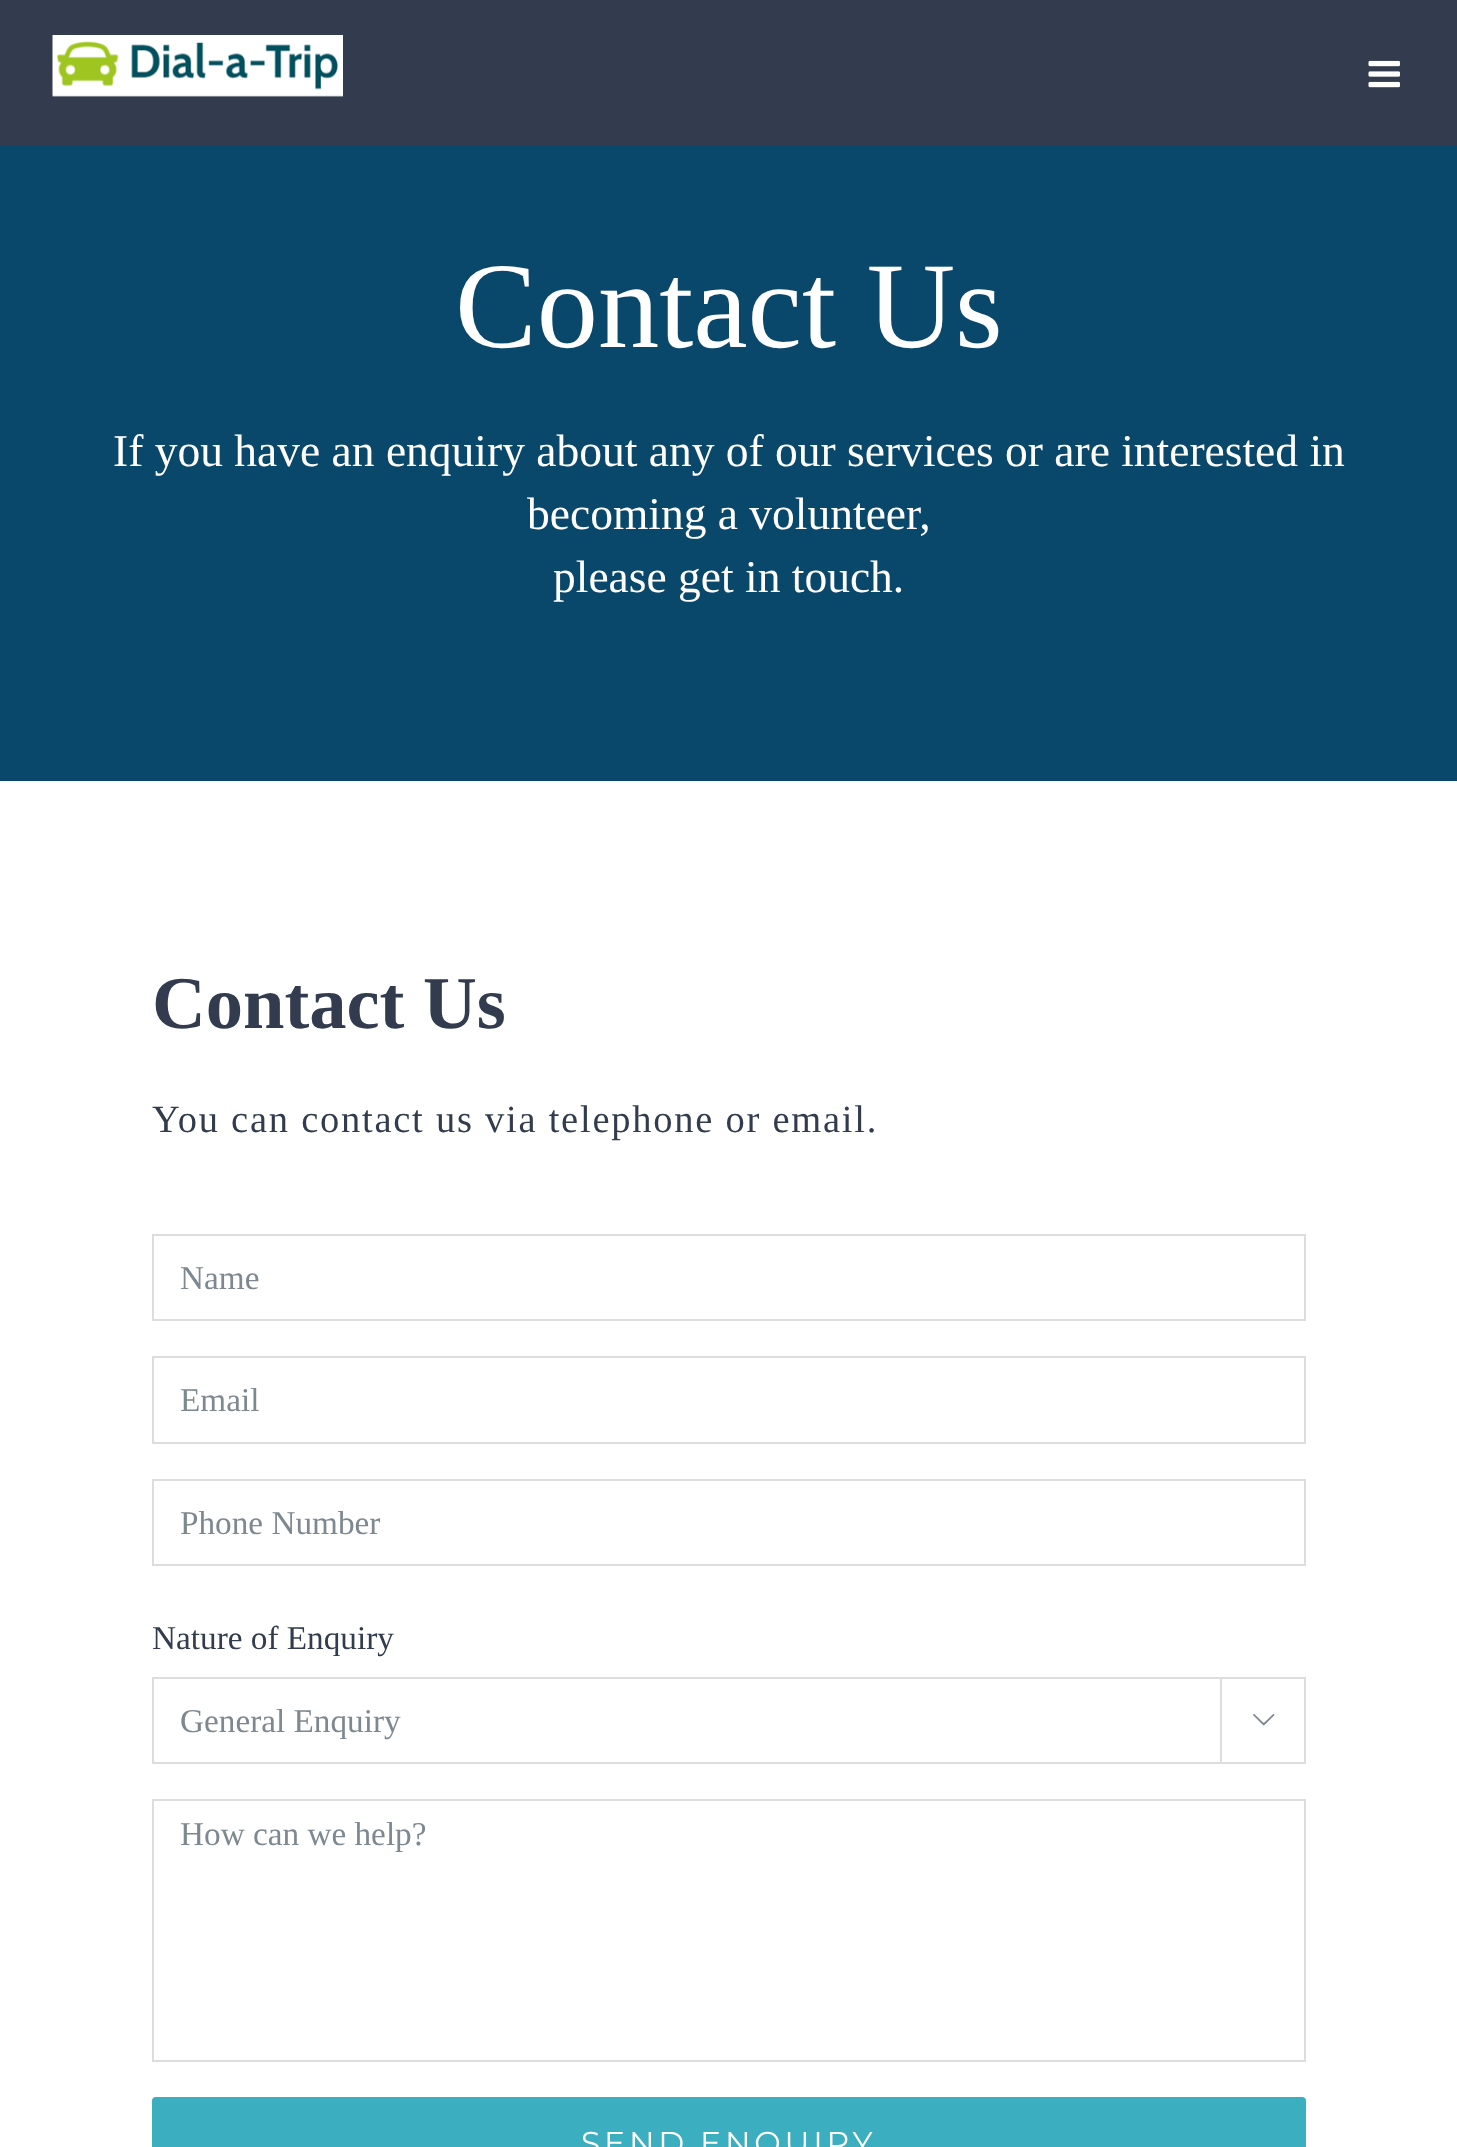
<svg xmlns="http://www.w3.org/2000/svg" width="1457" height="2147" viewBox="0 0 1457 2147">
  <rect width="100%" height="100%" fill="rgb(255,255,255)"/>
  <rect x="0" y="0" width="1457" height="145" fill="rgb(51,60,78)"/>
  <image x="52" y="35" width="291" height="62" href="pic1.png"/>
  <image x="1368" y="60" width="32" height="28" href="pic2.png"/>
  <rect x="0" y="145" width="1457" height="636" fill="rgb(10,72,107)"/>
  <text x="455" y="347" font-family="Liberation Serif" font-size="122.5" fill="rgb(255,255,255)">Contact Us</text>
  <g font-family="Liberation Serif" font-size="45.5" fill="rgb(255,255,255)">
    <text x="113" y="466">If you have an enquiry about any of our services or are interested in</text>
    <text x="527" y="529">becoming a volunteer,</text>
    <text x="553" y="592">please get in touch.</text>
  </g>
  <text x="152" y="1028" font-family="Liberation Serif" font-size="74.5" font-weight="bold" fill="rgb(51,60,78)">Contact Us</text>
  <text x="152" y="1132" font-family="Liberation Serif" font-size="38.5" letter-spacing="1.75" fill="rgb(51,60,78)">You can contact us via telephone or email.</text>
  <rect x="153" y="1235" width="1152" height="85" fill="none" stroke="rgb(221,221,221)" stroke-width="2"/>
  <text x="180" y="1289" font-family="Liberation Serif" font-size="33.25" fill="rgb(126,136,144)">Name</text>
  <rect x="153" y="1357" width="1152" height="86" fill="none" stroke="rgb(221,221,221)" stroke-width="2"/>
  <text x="180" y="1411" font-family="Liberation Serif" font-size="33.25" fill="rgb(126,136,144)">Email</text>
  <rect x="153" y="1480" width="1152" height="85" fill="none" stroke="rgb(221,221,221)" stroke-width="2"/>
  <text x="180" y="1534" font-family="Liberation Serif" font-size="33.25" fill="rgb(126,136,144)">Phone Number</text>
  <text x="152" y="1649" font-family="Liberation Serif" font-size="33.25" fill="rgb(51,60,78)">Nature of Enquiry</text>
  <rect x="153" y="1678" width="1152" height="85" fill="none" stroke="rgb(221,221,221)" stroke-width="2"/>
  <text x="180" y="1732" font-family="Liberation Serif" font-size="33.25" fill="rgb(126,136,144)">General Enquiry</text>
  <rect x="1220" y="1678" width="2" height="84" fill="rgb(221,221,221)"/>
  <image x="1253" y="1714" width="22" height="12" href="pic3.png"/>
  <rect x="153" y="1800" width="1152" height="261" fill="none" stroke="rgb(221,221,221)" stroke-width="2"/>
  <text x="180" y="1845" font-family="Liberation Serif" font-size="33.25" fill="rgb(126,136,144)">How can we help?</text>
  <rect x="152" y="2097" width="1154" height="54" rx="4" fill="rgb(59,175,191)"/>
  <text x="581" y="2154" font-family="Montserrat" font-size="31.5" font-weight="100" letter-spacing="3.75" fill="rgb(255,255,255)">SEND ENQUIRY</text>
</svg>
